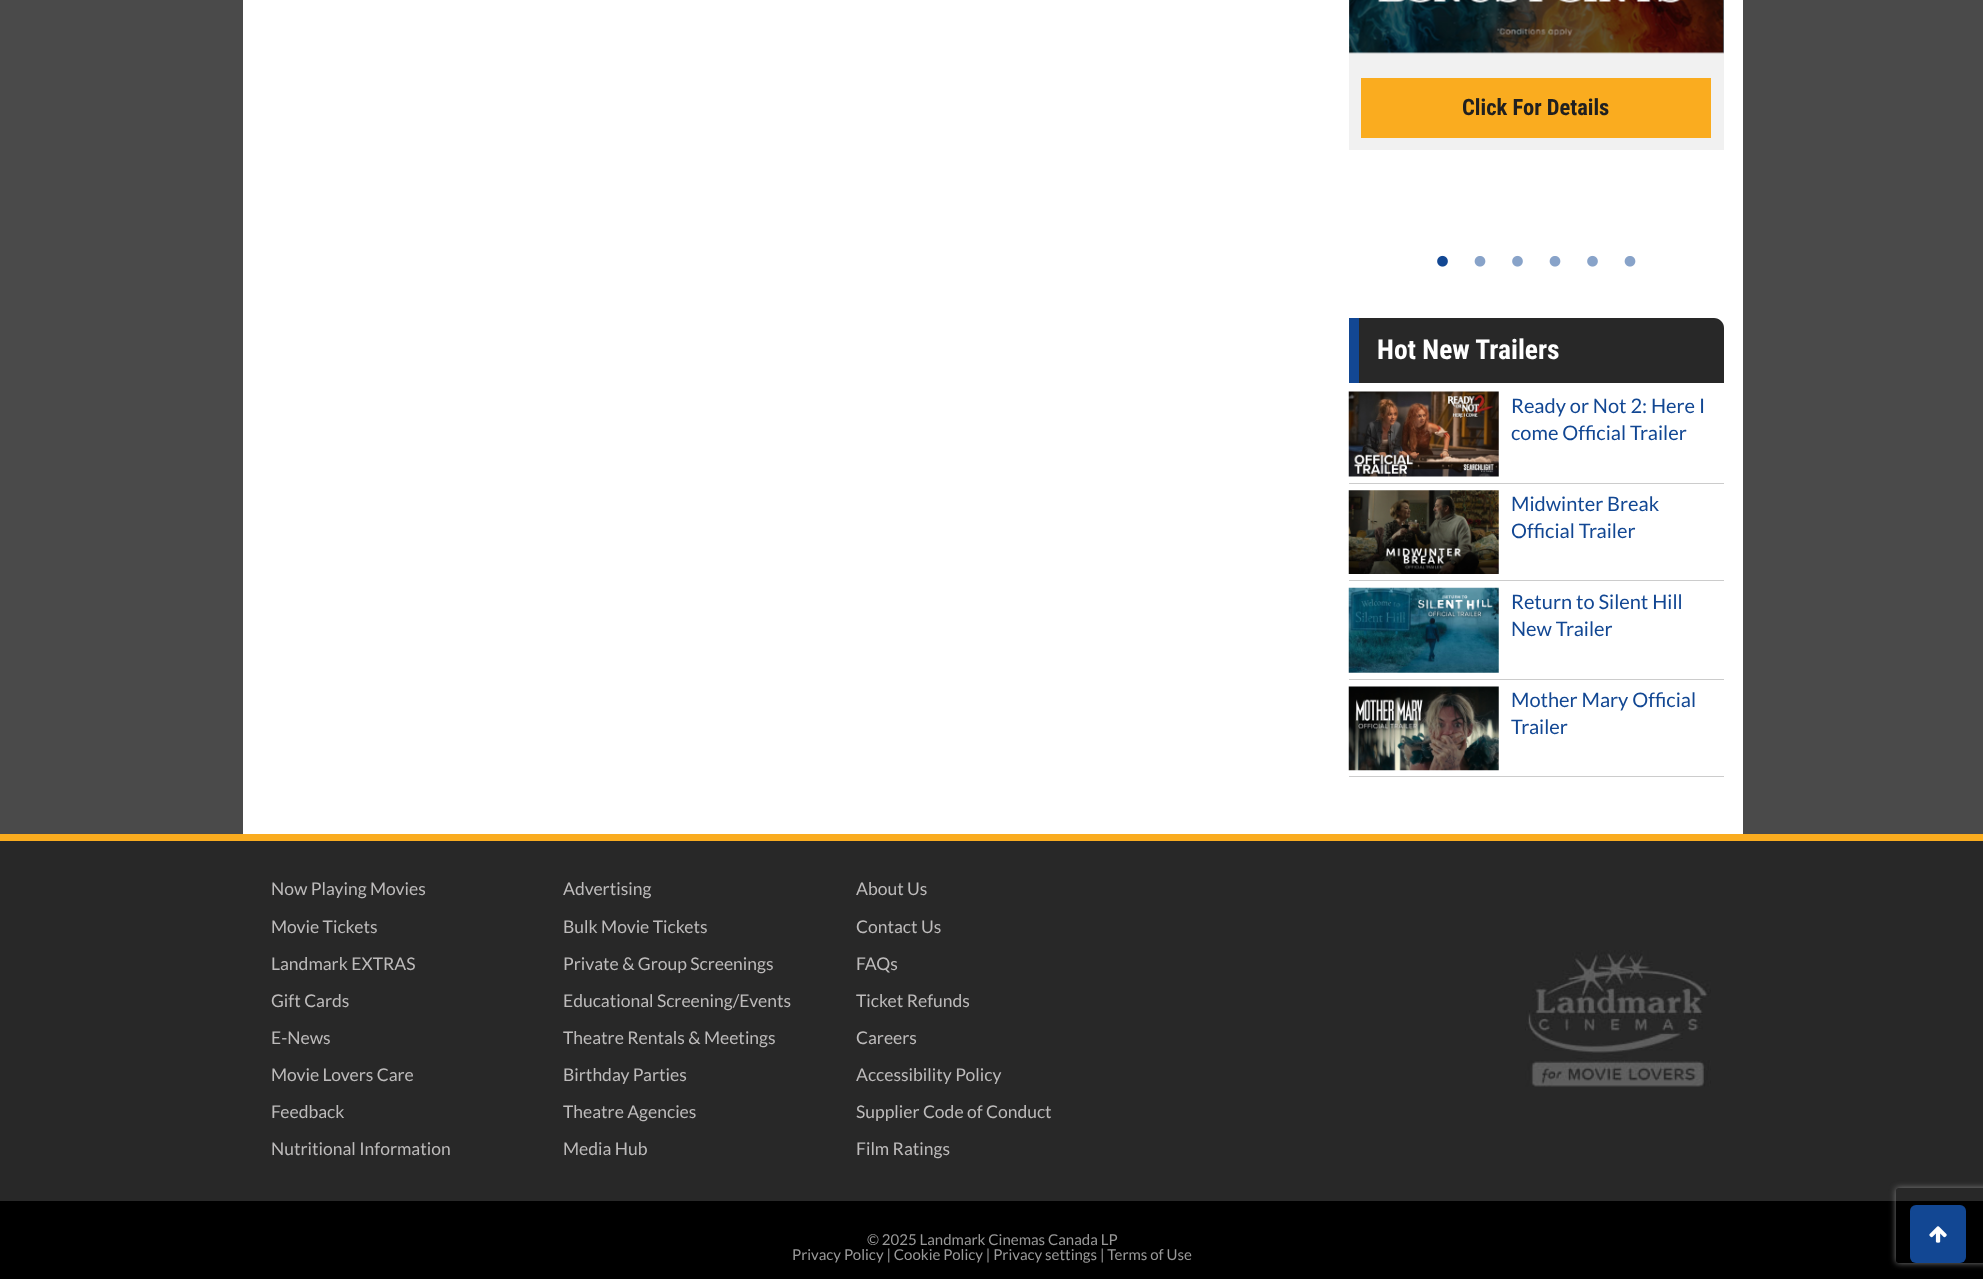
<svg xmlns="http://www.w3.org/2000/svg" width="1983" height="1279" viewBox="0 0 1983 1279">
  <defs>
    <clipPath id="clip1"><path d="M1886 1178H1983V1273H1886ZM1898.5 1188H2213.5C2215 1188 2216 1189 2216 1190.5V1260.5C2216 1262 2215 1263 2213.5 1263H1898.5C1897 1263 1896 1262 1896 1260.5V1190.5C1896 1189 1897 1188 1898.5 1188Z" clip-rule="evenodd"/></clipPath>
  </defs>
  <rect width="100%" height="100%" fill="rgb(74,74,74)"/>
  <rect x="243" y="0" width="1500" height="834" fill="rgb(255,255,255)"/>
  <rect x="1349" y="0" width="375" height="150" fill="rgb(241,241,241)"/>
  <image x="1349" y="0" width="375" height="54" href="pic2.png"/>
  <image x="1723" y="0" width="1" height="54" href="pic1.png"/>
  <rect x="1361" y="78" width="350" height="60" fill="rgb(250,172,31)"/>
  <text x="1462" y="115" font-family="Roboto Condensed" font-size="22.5" font-weight="bold" fill="rgb(32,32,32)">Click For Details</text>
  <image x="1437" y="255" width="11" height="12" href="pic3.png"/>
  <image x="1474" y="256" width="12" height="11" href="pic4.png"/>
  <image x="1512" y="255" width="11" height="12" href="pic5.png"/>
  <image x="1549" y="256" width="12" height="11" href="pic4.png"/>
  <image x="1587" y="255" width="11" height="12" href="pic5.png"/>
  <image x="1624" y="256" width="12" height="11" href="pic4.png"/>
  <path d="M1349 318H1714C1719.5 318 1724 322.5 1724 328V383H1349Z" fill="rgb(40,40,40)"/>
  <rect x="1349" y="318" width="10" height="65" fill="rgb(18,71,147)"/>
  <text x="1377" y="359" font-family="Roboto Condensed" font-size="27.5" font-weight="bold" fill="rgb(255,255,255)">Hot New Trailers</text>
  <rect x="1349" y="483" width="375" height="1" fill="rgb(204,204,204)"/>
  <image x="1348" y="391" width="151" height="86" href="pic6.png"/>
  <g font-family="Lato" font-size="20" fill="rgb(18,71,147)">
    <text>
      <tspan x="1511" y="413">Ready or Not 2: Here I</tspan>
      <tspan x="1511" y="440">come Official Trailer</tspan>
    </text>
  </g>
  <rect x="1349" y="580" width="375" height="1" fill="rgb(204,204,204)"/>
  <image x="1348" y="490" width="151" height="84" href="pic7.png"/>
  <g font-family="Lato" font-size="20" fill="rgb(18,71,147)">
    <text>
      <tspan x="1511" y="511">Midwinter Break</tspan>
      <tspan x="1511" y="538">Official Trailer</tspan>
    </text>
  </g>
  <rect x="1349" y="679" width="375" height="1" fill="rgb(204,204,204)"/>
  <image x="1348" y="587" width="151" height="86" href="pic8.png"/>
  <g font-family="Lato" font-size="20" fill="rgb(18,71,147)">
    <text>
      <tspan x="1511" y="609">Return to Silent Hill</tspan>
      <tspan x="1511" y="636">New Trailer</tspan>
    </text>
  </g>
  <rect x="1349" y="776" width="375" height="1" fill="rgb(204,204,204)"/>
  <image x="1348" y="686" width="151" height="85" href="pic9.png"/>
  <g font-family="Lato" font-size="20" fill="rgb(18,71,147)">
    <text>
      <tspan x="1511" y="707">Mother Mary Official</tspan>
      <tspan x="1511" y="734">Trailer</tspan>
    </text>
  </g>
  <rect x="0" y="841" width="1983" height="360" fill="rgb(40,40,40)"/>
  <rect x="0" y="834" width="1983" height="7" fill="rgb(250,172,31)"/>
  <image x="1525" y="950" width="186" height="137" href="pic10.png"/>
  <g font-family="Lato" font-size="17.5" fill="rgb(189,187,187)">
    <text x="271" y="895">Now Playing Movies</text>
    <text x="271" y="933">Movie Tickets</text>
    <text x="271" y="970">Landmark EXTRAS</text>
    <text x="271" y="1007">Gift Cards</text>
    <text x="271" y="1044">E-News</text>
    <text x="271" y="1081">Movie Lovers Care</text>
    <text x="271" y="1118">Feedback</text>
    <text x="271" y="1155">Nutritional Information</text>
    <text x="563" y="895">Advertising</text>
    <text x="563" y="933">Bulk Movie Tickets</text>
    <text x="563" y="970">Private &amp; Group Screenings</text>
    <text x="563" y="1007">Educational Screening/Events</text>
    <text x="563" y="1044">Theatre Rentals &amp; Meetings</text>
    <text x="563" y="1081">Birthday Parties</text>
    <text x="563" y="1118">Theatre Agencies</text>
    <text x="563" y="1155">Media Hub</text>
    <text x="856" y="895">About Us</text>
    <text x="856" y="933">Contact Us</text>
    <text x="856" y="970">FAQs</text>
    <text x="856" y="1007">Ticket Refunds</text>
    <text x="856" y="1044">Careers</text>
    <text x="856" y="1081">Accessibility Policy</text>
    <text x="856" y="1118">Supplier Code of Conduct</text>
    <text x="856" y="1155">Film Ratings</text>
  </g>
  <rect x="0" y="1201" width="1983" height="78" fill="rgb(0,0,0)"/>
  <g clip-path="url(#clip1)">
    <rect x="1896" y="1188" width="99" height="75" rx="2.5" fill="rgb(128,128,128)" filter="blur(3px)"/>
  </g>
  <rect x="1910" y="1205" width="56" height="58" rx="6" fill="rgb(18,71,147)"/>
  <image x="1929" y="1226" width="18" height="17" href="pic11.png"/>
  <g font-family="Lato" font-size="15" fill="rgb(153,153,153)">
    <text x="867" y="1245">© 2025 Landmark Cinemas Canada LP</text>
    <text x="792" y="1260">Privacy Policy | Cookie Policy | Privacy settings | Terms of Use</text>
  </g>
</svg>
